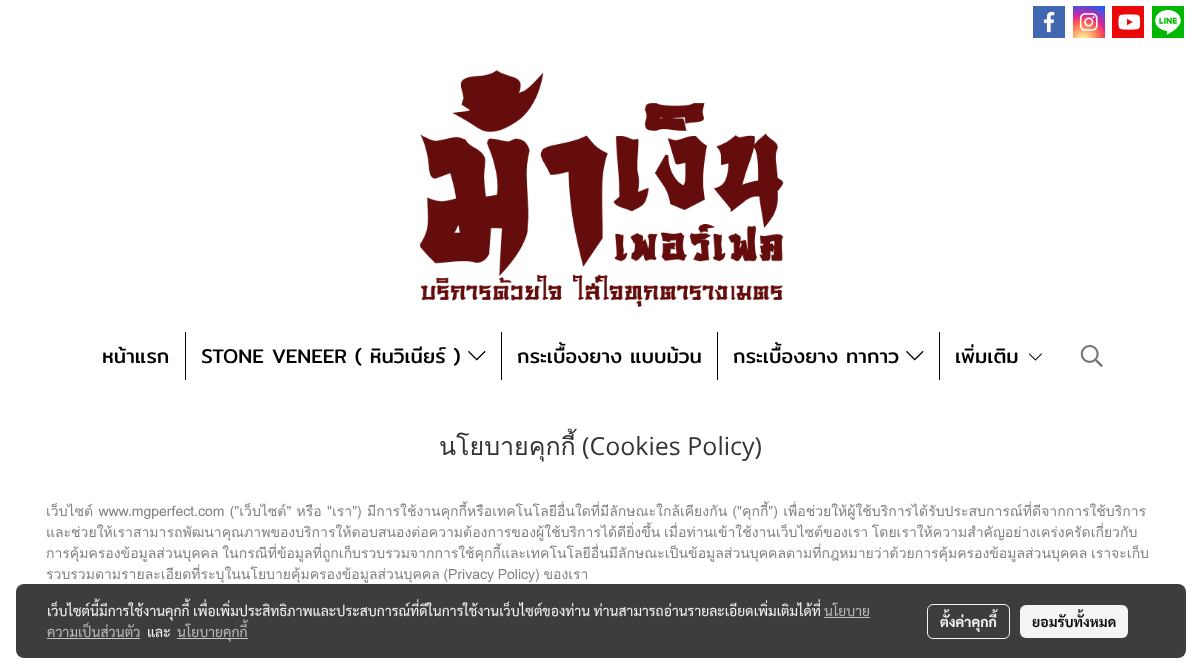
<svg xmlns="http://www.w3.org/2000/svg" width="1201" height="666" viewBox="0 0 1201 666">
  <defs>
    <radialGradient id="g1" gradientUnits="userSpaceOnUse" cx="1083" cy="40" r="41"><stop offset="0" stop-color="rgb(253,244,151)"/><stop offset="0.05" stop-color="rgb(253,244,151)"/><stop offset="0.45" stop-color="rgb(253,89,73)"/><stop offset="0.6" stop-color="rgb(214,36,159)"/><stop offset="0.9" stop-color="rgb(40,90,235)"/></radialGradient>
  </defs>
  <rect width="100%" height="100%" fill="rgb(255,255,255)"/>
  <rect x="1033" y="6" width="32" height="32" fill="rgb(66,103,178)"/>
  <image x="1043" y="11" width="12" height="22" href="pic1.png"/>
  <rect x="1073" y="6" width="32" height="32" fill="url(#g1)"/>
  <image x="1079" y="13" width="19" height="18" href="pic2.png"/>
  <rect x="1112" y="6" width="32" height="32" fill="rgb(235,8,8)"/>
  <image x="1118" y="14" width="23" height="16" href="pic3.png"/>
  <rect x="1152" y="6" width="32" height="32" fill="rgb(0,184,0)"/>
  <image x="1155" y="10" width="26" height="25" href="pic4.png"/>
  <image x="420" y="70" width="364" height="238" href="pic5.png"/>
  <rect x="185" y="332" width="1" height="48" fill="rgb(0,0,0)"/>
  <text x="102" y="363" font-family="Mitr" font-size="20" fill="rgb(0,0,0)">หน้าแรก</text>
  <rect x="501" y="332" width="1" height="48" fill="rgb(0,0,0)"/>
  <text x="201" y="363" font-family="Mitr" font-size="20" fill="rgb(0,0,0)">STONE VENEER ( หินวิเนียร์ )</text>
  <image x="468" y="351" width="18" height="10" href="pic6.png"/>
  <rect x="717" y="332" width="1" height="48" fill="rgb(0,0,0)"/>
  <text x="517" y="363" font-family="Mitr" font-size="20" fill="rgb(0,0,0)">กระเบื้องยาง แบบม้วน</text>
  <rect x="939" y="332" width="1" height="48" fill="rgb(0,0,0)"/>
  <text x="733" y="363" font-family="Mitr" font-size="20" fill="rgb(0,0,0)">กระเบื้องยาง ทากาว</text>
  <image x="906" y="351" width="18" height="10" href="pic6.png"/>
  <text x="955" y="363" font-family="Mitr" font-size="20" fill="rgb(0,0,0)">เพิ่มเติม</text>
  <image x="1028" y="353" width="14" height="8" href="pic7.png"/>
  <image x="1080" y="345" width="23" height="22" href="pic8.png"/>
  <text x="439" y="455" font-family="Loma" font-size="25" fill="rgb(51,51,51)">นโยบายคุกกี้</text>
  <text x="582" y="455" font-family="Open Sans" font-size="25" fill="rgb(51,51,51)">(Cookies Policy)</text>
  <g font-family="Loma" font-size="14" fill="rgb(128,128,128)">
    <text>
      <tspan x="46" y="516" word-spacing="0.5">เว็บไซต์ www.mgperfect.com ("เว็บไซต์" หรือ "เรา") มีการใช้งานคุกกี้หรือเทคโนโลยีอื่นใดที่มีลักษณะใกล้เคียงกัน ("คุกกี้") เพื่อช่วยให้ผู้ใช้บริการได้รับประสบการณ์ที่ดีจากการใช้บริการ</tspan>
      <tspan x="46" y="537" word-spacing="-1">และช่วยให้เราสามารถพัฒนาคุณภาพของบริการให้ตอบสนองต่อความต้องการของผู้ใช้บริการได้ดียิ่งขึ้น เมื่อท่านเข้าใช้งานเว็บไซต์ของเรา โดยเราให้ความสำคัญอย่างเคร่งครัดเกี่ยวกับ</tspan>
      <tspan x="46" y="558" word-spacing="-1">การคุ้มครองข้อมูลส่วนบุคคล ในกรณีที่ข้อมูลที่ถูกเก็บรวบรวมจากการใช้คุกกี้และเทคโนโลยีอื่นมีลักษณะเป็นข้อมูลส่วนบุคคลตามที่กฎหมายว่าด้วยการคุ้มครองข้อมูลส่วนบุคคล เราจะเก็บ</tspan>
      <tspan x="46" y="579" word-spacing="-1">รวบรวมตามรายละเอียดที่ระบุในนโยบายคุ้มครองข้อมูลส่วนบุคคล (Privacy Policy) ของเรา</tspan>
    </text>
  </g>
  <rect x="16" y="584" width="1170" height="74" rx="8" fill="rgba(0,0,0,0.76)"/>
  <text x="47" y="616" font-family="Sarabun" font-size="14" fill="rgb(245,245,245)">เว็บไซต์นี้มีการใช้งานคุกกี้ เพื่อเพิ่มประสิทธิภาพและประสบการณ์ที่ดีในการใช้งานเว็บไซต์ของท่าน ท่านสามารถอ่านรายละเอียดเพิ่มเติมได้ที่</text>
  <text x="824" y="616" font-family="Sarabun" font-size="14" fill="rgb(187,187,187)">นโยบาย</text>
  <rect x="824" y="617" width="46" height="1" fill="rgba(194,194,194,0.95)"/>
  <text x="47" y="637" font-family="Sarabun" font-size="14" fill="rgb(187,187,187)">ความเป็นส่วนตัว</text>
  <rect x="47" y="638" width="93" height="1" fill="rgb(197,197,197)"/>
  <text x="147" y="637" font-family="Sarabun" font-size="14" fill="rgb(245,245,245)">และ</text>
  <rect x="177" y="638" width="71" height="1" fill="rgb(197,197,197)"/>
  <text x="177" y="637" font-family="Sarabun" font-size="14" fill="rgb(187,187,187)">นโยบายคุกกี้</text>
  <rect x="927.5" y="604.5" width="82" height="34" rx="5.5" fill="none" stroke="rgba(255,255,255,0.95)"/>
  <text x="940" y="627" font-family="Sarabun" font-size="14" font-weight="bold" fill="rgb(245,245,245)">ตั้งค่าคุกกี้</text>
  <rect x="1020" y="605" width="108" height="33" rx="6" fill="rgba(255,255,255,0.95)"/>
  <text x="1032" y="627" font-family="Sarabun" font-size="14" font-weight="bold" fill="rgb(12,12,12)">ยอมรับทั้งหมด</text>
</svg>
